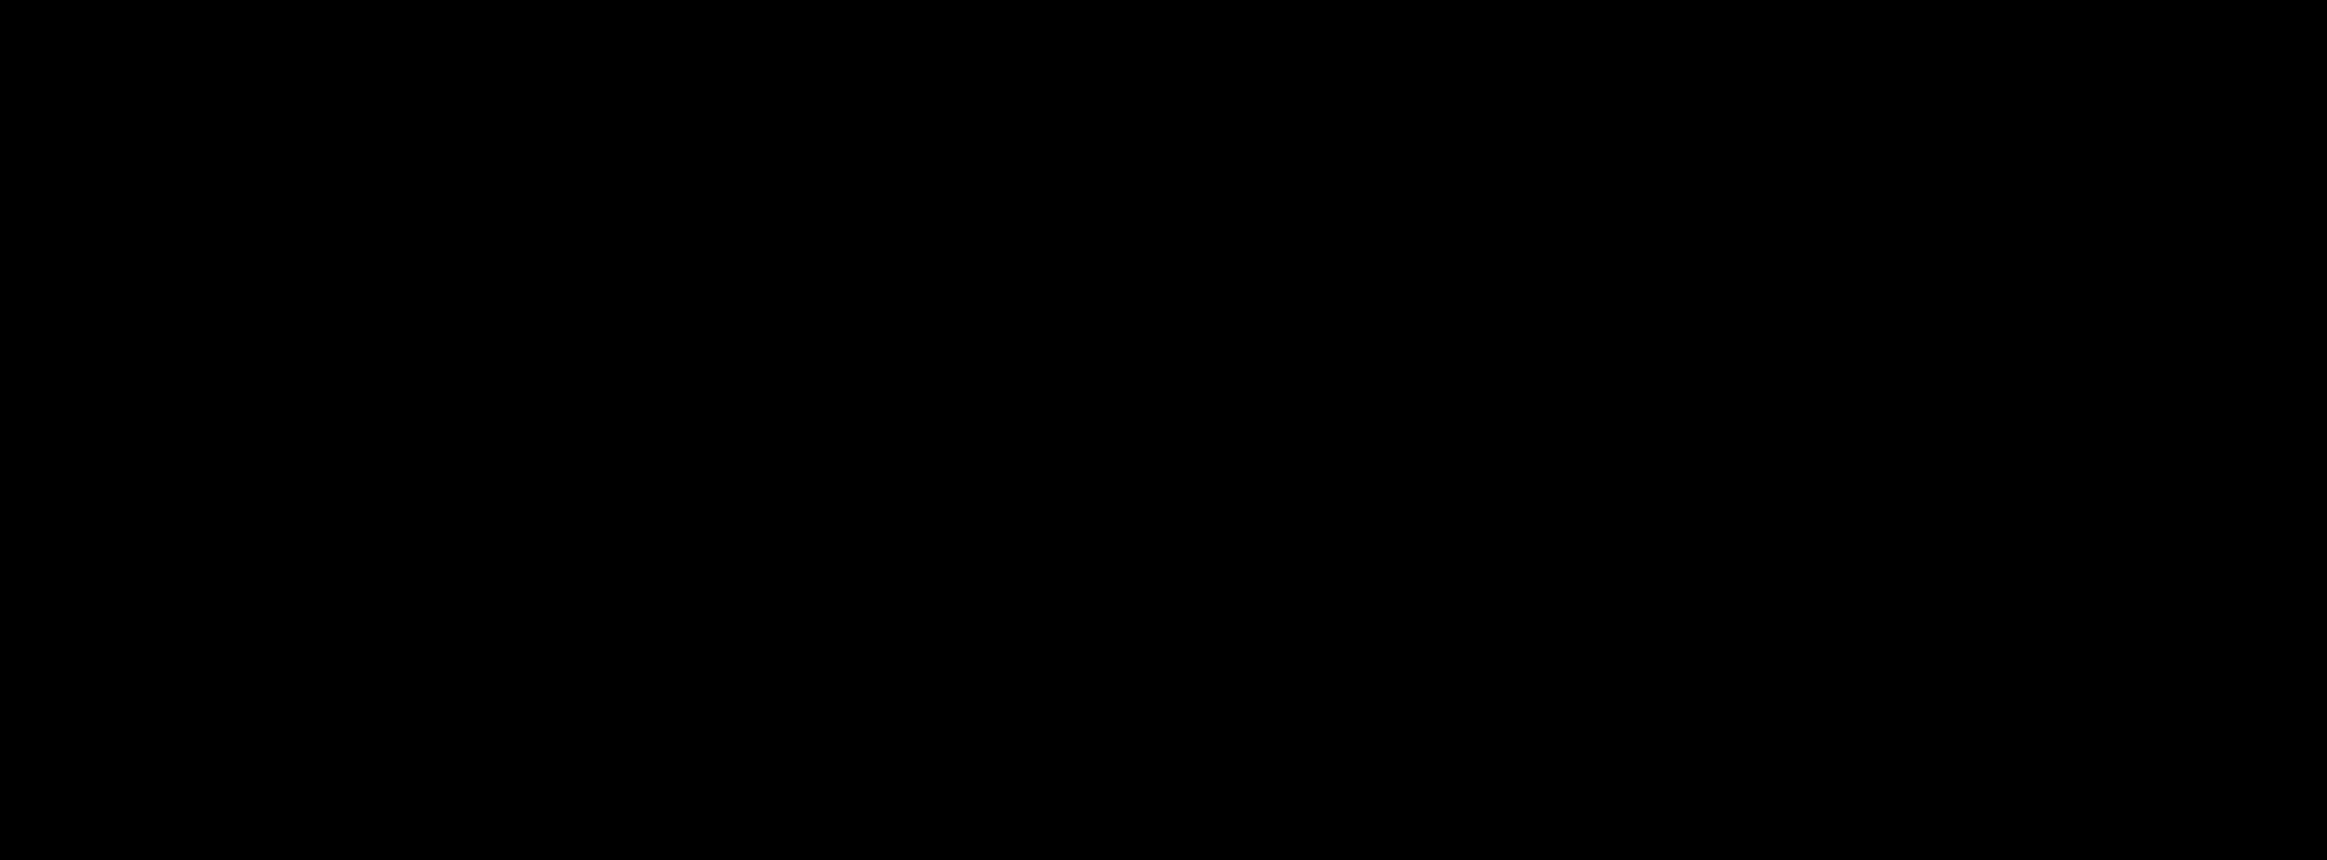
<svg xmlns="http://www.w3.org/2000/svg" width="2327" height="860" viewBox="0 0 2327 860">
  <rect width="100%" height="100%" fill="rgb(0,0,0)"/>
  <image x="417" y="128" width="586" height="94" href="pic1.png"/>
  <image x="1646" y="308" width="17" height="17" href="pic2.png"/>
  <image x="1710" y="308" width="14" height="16" href="pic3.png"/>
  <image x="417" y="720" width="360" height="140" href="pic4.png"/>
  <image x="447" y="752" width="17" height="13" href="pic5.png"/>
  <image x="795" y="720" width="360" height="140" href="pic6.png"/>
  <image x="825" y="752" width="17" height="13" href="pic7.png"/>
  <image x="1173" y="720" width="360" height="140" href="pic8.png"/>
  <image x="1202" y="752" width="17" height="13" href="pic5.png"/>
  <image x="1551" y="720" width="359" height="140" href="pic9.png"/>
  <image x="1580" y="752" width="17" height="13" href="pic7.png"/>
</svg>
